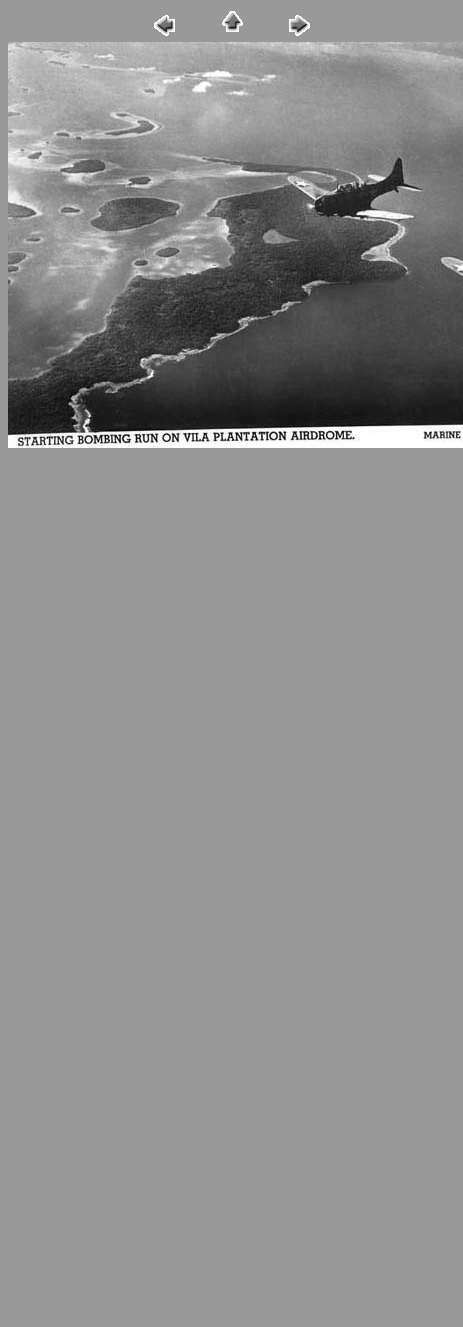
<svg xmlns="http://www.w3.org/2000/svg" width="463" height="1327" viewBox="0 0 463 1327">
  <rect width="100%" height="100%" fill="rgb(153,153,153)"/>
  <image x="154" y="15" width="21" height="21" href="pic1.png"/>
  <image x="222" y="11" width="21" height="21" href="pic2.png"/>
  <image x="289" y="15" width="21" height="21" href="pic3.png"/>
  <image x="8" y="42" width="455" height="406" href="pic4.png"/>
</svg>
